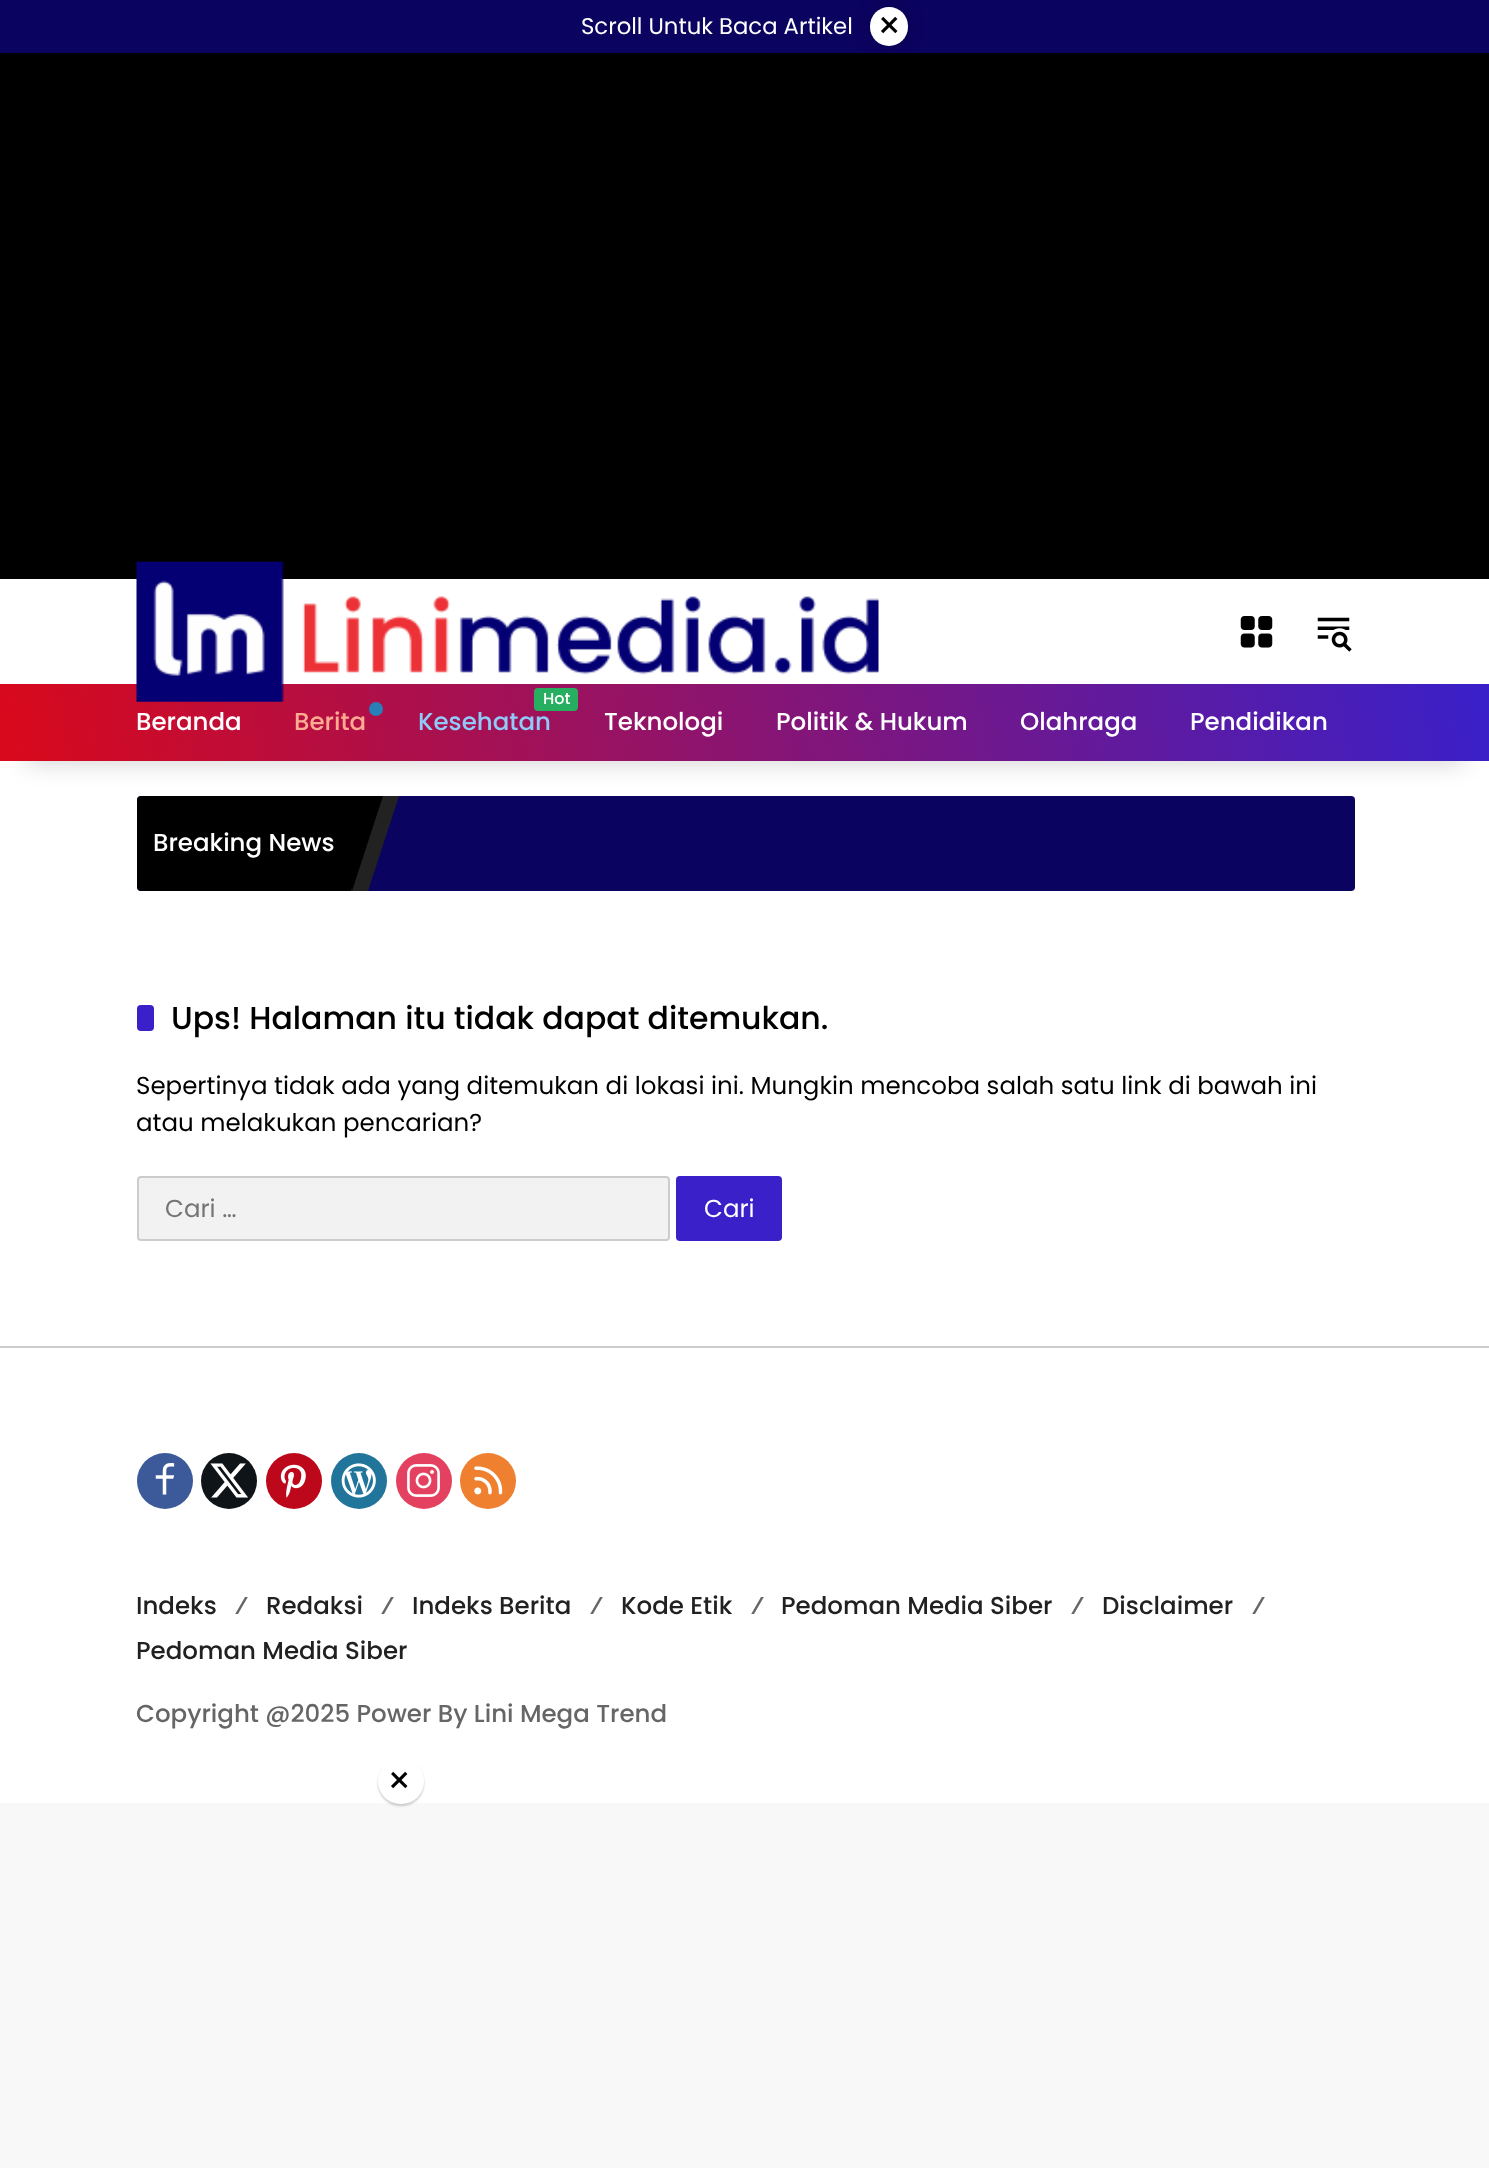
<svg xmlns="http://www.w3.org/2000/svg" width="1489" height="2168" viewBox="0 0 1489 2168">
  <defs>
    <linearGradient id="g1" gradientUnits="userSpaceOnUse" x1="16" y1="851" x2="1473" y2="594"><stop offset="0" stop-color="rgb(217,9,27)"/><stop offset="1" stop-color="rgb(57,32,201)"/></linearGradient>
  </defs>
  <rect width="100%" height="100%" fill="rgb(248,248,248)"/>
  <rect x="0" y="53" width="1489" height="526" fill="rgb(0,0,0)"/>
  <rect x="0" y="0" width="1489" height="53" fill="rgb(11,3,96)"/>
  <text x="581" y="34" font-family="Poppins" font-size="22.75" fill="rgb(255,255,255)">Scroll Untuk Baca Artikel</text>
  <rect x="870" y="7" width="38" height="39" rx="19" fill="rgba(0,0,0,0.2)" filter="blur(9px)"/>
  <rect x="870" y="7" width="38" height="39" rx="19" fill="rgb(255,255,255)"/>
  <text x="877" y="39" font-family="Poppins" font-size="38" fill="rgb(0,0,0)">×</text>
  <rect x="0" y="579" width="1489" height="1224" fill="rgb(255,255,255)"/>
  <rect x="137" y="796" width="1218" height="95" rx="4" fill="rgb(11,3,96)"/>
  <path d="M141 796H352V891H141C139 891 137 889 137 887V800C137 798 139 796 141 796Z" fill="rgb(0,0,0)"/>
  <path d="M382 796H399L368 891H351Z" fill="rgb(34,34,34)"/>
  <path d="M352 796H383L352 891Z" fill="rgb(0,0,0)"/>
  <rect x="26" y="737" width="1437" height="24" fill="rgba(0,0,0,0.2)" filter="blur(13px)"/>
  <rect x="0" y="684" width="1489" height="77" fill="url(#g1)"/>
  <image x="136" y="561" width="743" height="141" href="pic1.png"/>
  <image x="1240" y="616" width="33" height="32" href="pic2.png"/>
  <image x="1317" y="617" width="35" height="35" href="pic3.png"/>
  <text x="136" y="730" font-family="Poppins" font-size="24.5" font-weight="500" fill="rgb(255,255,255)">Beranda</text>
  <circle cx="376" cy="709" r="7" fill="rgb(41,128,185)"/>
  <text x="294" y="730" font-family="Poppins" font-size="24.5" font-weight="500" fill="rgb(255,171,145)">Berita</text>
  <rect x="534" y="688" width="44" height="23" rx="4" fill="rgb(39,174,96)"/>
  <text x="543" y="704" font-family="Poppins" font-size="16" font-weight="500" fill="rgb(255,255,255)">Hot</text>
  <text x="418" y="730" font-family="Poppins" font-size="24.5" font-weight="500" fill="rgb(144,202,249)">Kesehatan</text>
  <g font-family="Poppins" font-size="24.5" font-weight="500" fill="rgb(255,255,255)">
    <text x="604" y="730">Teknologi</text>
    <text x="776" y="730">Politik &amp; Hukum</text>
    <text x="1020" y="730">Olahraga</text>
    <text x="1190" y="730">Pendidikan</text>
    <text x="153" y="851">Breaking News</text>
  </g>
  <rect x="137" y="1005" width="17" height="26" rx="4" fill="rgb(57,32,201)"/>
  <text x="171" y="1029" font-family="Poppins" font-size="31.5" font-weight="500" fill="rgb(0,0,0)">Ups! Halaman itu tidak dapat ditemukan.</text>
  <g font-family="Poppins" font-size="24.5" fill="rgb(0,0,0)">
    <text>
      <tspan x="136" y="1094">Sepertinya tidak ada yang ditemukan di lokasi ini. Mungkin mencoba salah satu link di bawah ini</tspan>
      <tspan x="136" y="1131">atau melakukan pencarian?</tspan>
    </text>
  </g>
  <rect x="138" y="1177" width="531" height="63" rx="3" fill="rgb(242,242,242)" stroke="rgb(204,204,204)" stroke-width="2"/>
  <text x="165" y="1217" font-family="Poppins" font-size="24.5" fill="rgb(117,117,117)">Cari …</text>
  <rect x="676" y="1176" width="106" height="65" rx="4" fill="rgb(57,32,201)"/>
  <text x="704" y="1217" font-family="Poppins" font-size="24.5" fill="rgb(255,255,255)">Cari</text>
  <rect x="0" y="1346" width="1489" height="2" fill="rgb(204,204,204)"/>
  <circle cx="165" cy="1481" r="28" fill="rgb(60,90,153)"/>
  <image x="155" y="1463" width="20" height="32" href="pic4.png"/>
  <circle cx="229" cy="1481" r="28" fill="rgb(15,20,25)"/>
  <image x="210" y="1463" width="38" height="35" href="pic5.png"/>
  <circle cx="294" cy="1481" r="28" fill="rgb(189,8,28)"/>
  <image x="280" y="1464" width="26" height="34" href="pic6.png"/>
  <circle cx="359" cy="1481" r="28" fill="rgb(33,117,155)"/>
  <image x="341" y="1463" width="35" height="35" href="pic7.png"/>
  <circle cx="424" cy="1481" r="28" fill="rgb(228,64,95)"/>
  <image x="407" y="1464" width="33" height="33" href="pic8.png"/>
  <circle cx="488" cy="1481" r="28" fill="rgb(238,128,47)"/>
  <image x="474" y="1466" width="29" height="29" href="pic9.png"/>
  <text x="136" y="1614" font-family="Poppins" font-size="24.5" font-weight="500" fill="rgb(33,33,33)">Indeks</text>
  <text x="234" y="1614" font-family="Poppins" font-size="24.5" font-weight="500" fill="rgb(102,102,102)">⁄</text>
  <text x="266" y="1614" font-family="Poppins" font-size="24.5" font-weight="500" fill="rgb(33,33,33)">Redaksi</text>
  <text x="380" y="1614" font-family="Poppins" font-size="24.5" font-weight="500" fill="rgb(102,102,102)">⁄</text>
  <text x="412" y="1614" font-family="Poppins" font-size="24.5" font-weight="500" fill="rgb(33,33,33)">Indeks Berita</text>
  <text x="589" y="1614" font-family="Poppins" font-size="24.5" font-weight="500" fill="rgb(102,102,102)">⁄</text>
  <text x="621" y="1614" font-family="Poppins" font-size="24.5" font-weight="500" fill="rgb(33,33,33)">Kode Etik</text>
  <text x="750" y="1614" font-family="Poppins" font-size="24.5" font-weight="500" fill="rgb(102,102,102)">⁄</text>
  <text x="781" y="1614" font-family="Poppins" font-size="24.5" font-weight="500" fill="rgb(33,33,33)">Pedoman Media Siber</text>
  <text x="1070" y="1614" font-family="Poppins" font-size="24.5" font-weight="500" fill="rgb(102,102,102)">⁄</text>
  <text x="1102" y="1614" font-family="Poppins" font-size="24.5" font-weight="500" fill="rgb(33,33,33)">Disclaimer</text>
  <text x="1251" y="1614" font-family="Poppins" font-size="24.5" font-weight="500" fill="rgb(102,102,102)">⁄</text>
  <text x="136" y="1659" font-family="Poppins" font-size="24.5" font-weight="500" fill="rgb(33,33,33)">Pedoman Media Siber</text>
  <text x="136" y="1722" font-family="Poppins" font-size="24.5" font-weight="500" fill="rgb(102,102,102)">Copyright @2025 Power By Lini Mega Trend</text>
  <rect x="378" y="1761" width="46" height="45" rx="22.5" fill="rgba(0,0,0,0.2)" filter="blur(1px)"/>
  <rect x="378" y="1759" width="46" height="45" rx="22.5" fill="rgb(255,255,255)"/>
  <text x="387" y="1794" font-family="Poppins" font-size="38" fill="rgb(0,0,0)">×</text>
</svg>
